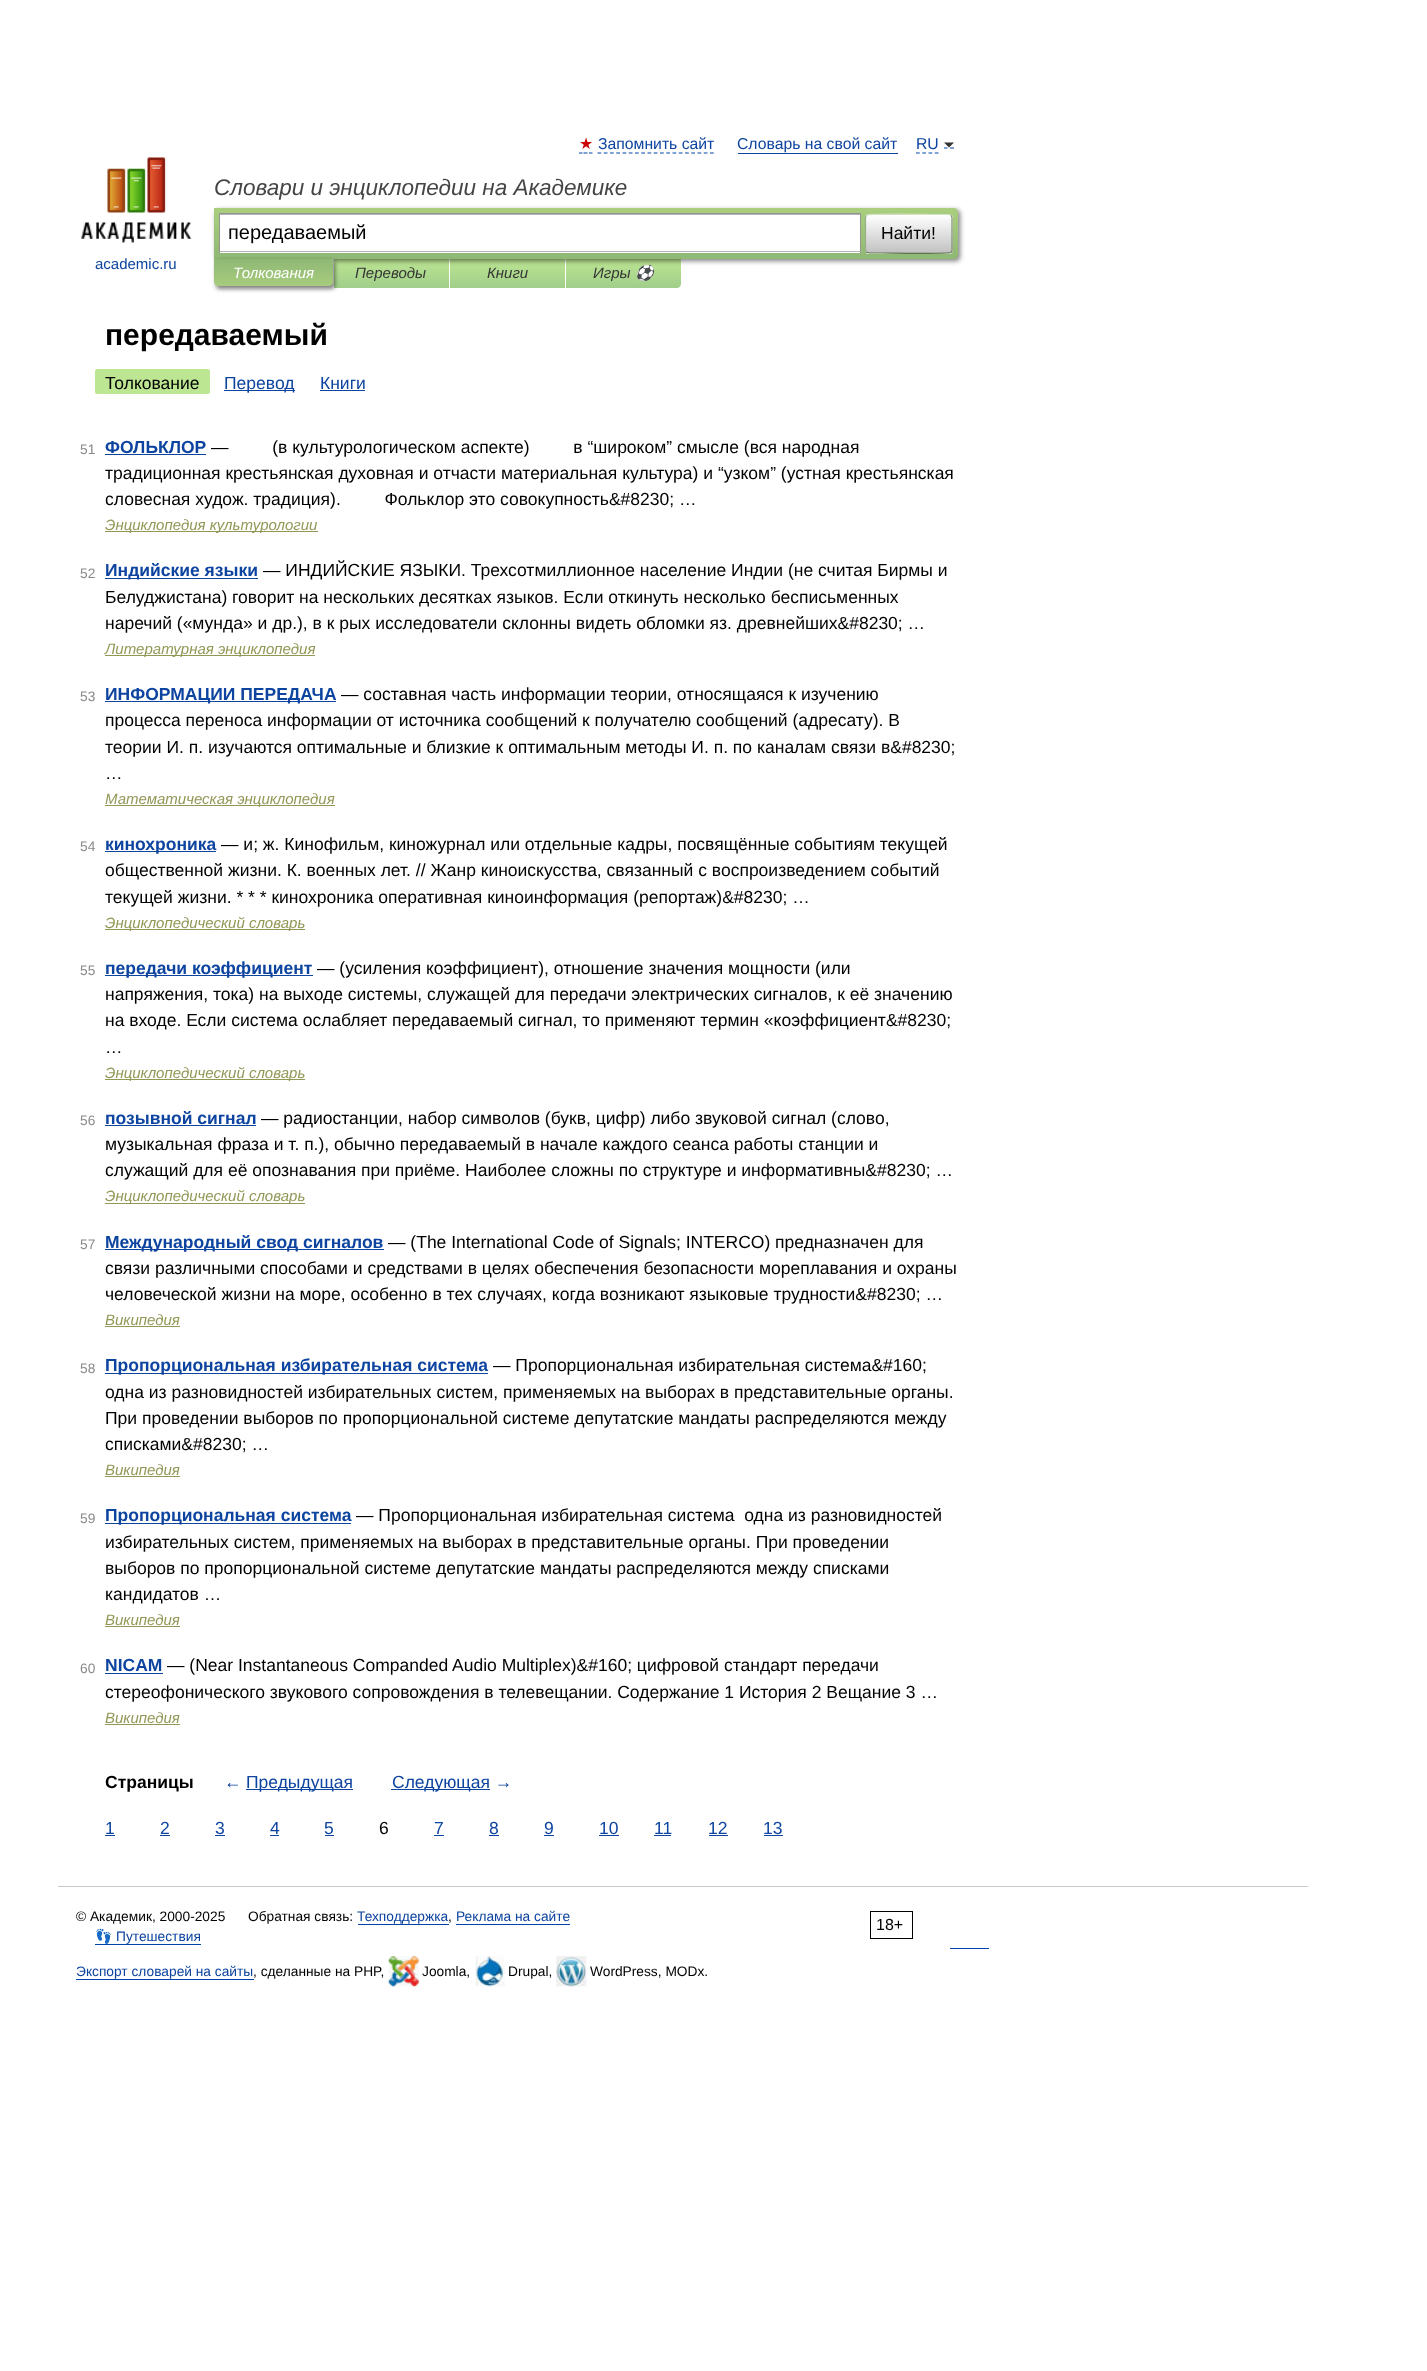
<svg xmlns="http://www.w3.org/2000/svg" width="1427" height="2371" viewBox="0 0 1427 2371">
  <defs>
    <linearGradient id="g1" gradientUnits="userSpaceOnUse" x1="391" y1="259" x2="391" y2="288"><stop offset="0" stop-color="rgb(189,230,147)"/><stop offset="1" stop-color="rgb(160,206,138)"/></linearGradient>
    <linearGradient id="g2" gradientUnits="userSpaceOnUse" x1="508" y1="259" x2="508" y2="288"><stop offset="0" stop-color="rgb(189,230,147)"/><stop offset="1" stop-color="rgb(160,206,138)"/></linearGradient>
    <linearGradient id="g3" gradientUnits="userSpaceOnUse" x1="624" y1="259" x2="624" y2="288"><stop offset="0" stop-color="rgb(189,230,147)"/><stop offset="1" stop-color="rgb(160,206,138)"/></linearGradient>
    <linearGradient id="g4" gradientUnits="userSpaceOnUse" x1="586" y1="207" x2="586" y2="259"><stop offset="0" stop-color="rgb(171,207,126)"/><stop offset="1" stop-color="rgb(142,184,116)"/></linearGradient>
    <clipPath id="clip1"><rect x="865" y="214" width="88" height="40" rx="4"/></clipPath>
    <linearGradient id="g5" gradientUnits="userSpaceOnUse" x1="909" y1="178" x2="909" y2="215"><stop offset="0" stop-color="rgb(255,255,255)"/><stop offset="1" stop-color="rgb(193,193,193)"/></linearGradient>
    <linearGradient id="g6" gradientUnits="userSpaceOnUse" x1="909" y1="215" x2="909" y2="253"><stop offset="0" stop-color="rgb(255,255,255)"/><stop offset="1" stop-color="rgb(193,193,193)"/></linearGradient>
    <linearGradient id="g7" gradientUnits="userSpaceOnUse" x1="909" y1="253" x2="909" y2="290"><stop offset="0" stop-color="rgb(255,255,255)"/><stop offset="1" stop-color="rgb(193,193,193)"/></linearGradient>
    <linearGradient id="g8" gradientUnits="userSpaceOnUse" x1="273" y1="259" x2="273" y2="286"><stop offset="0" stop-color="rgb(143,184,117)"/><stop offset="1" stop-color="rgb(167,204,125)"/></linearGradient>
  </defs>
  <rect width="100%" height="100%" fill="rgb(255,255,255)"/>
  <text x="579" y="149" font-family="DejaVu Sans" font-size="15.75" fill="rgb(204,0,0)">★</text>
  <path d="M579 153H582.5M583.5 153H587.5M589 153H592.5" fill="none" stroke="rgb(0,68,170)" stroke-width="1.2"/>
  <text x="598" y="149" font-family="Liberation Sans" font-size="15.75" fill="rgb(13,68,160)">Запомнить сайт</text>
  <path d="M597.5 153H714" fill="none" stroke="rgb(0,68,170)" stroke-width="1.2" stroke-dasharray="3.75 2.5"/>
  <text x="737" y="149" font-family="Liberation Sans" font-size="15.75" fill="rgb(13,68,160)">Словарь на свой сайт</text>
  <rect x="738" y="153" width="160" height="1" fill="rgb(13,68,160)"/>
  <path d="M916 153H939" fill="none" stroke="rgb(0,68,170)" stroke-width="1.2" stroke-dasharray="3.75 2.5"/>
  <path d="M944 148H947.5M950 148H954" fill="none" stroke="rgb(0,68,170)" stroke-width="1.2"/>
  <text x="916" y="149" font-family="Liberation Sans" font-size="15.75" fill="rgb(13,68,160)">RU</text>
  <path d="M944 142.5H954L949 147.5Z" fill="rgb(51,51,51)"/>
  <text x="214" y="195" font-family="Liberation Sans" font-size="22.5" font-style="italic" fill="rgb(69,69,69)">Словари и энциклопедии на Академике</text>
  <rect x="334" y="259" width="115" height="29" fill="url(#g1)"/>
  <rect x="450" y="259" width="115" height="29" fill="url(#g2)"/>
  <path d="M566 259H681V284C681 286 679 288 677 288H566Z" fill="url(#g3)"/>
  <rect x="216" y="210" width="744" height="51" rx="4" fill="rgba(0,0,0,0.5)" filter="blur(2.5px)"/>
  <path d="M214 208H954C956 208 958 210 958 212V255C958 257 956 259 954 259H214Z" fill="url(#g4)"/>
  <rect x="220" y="215" width="640" height="38" fill="rgb(255,255,255)"/>
  <rect x="220" y="214" width="640" height="1" fill="rgb(179,179,179)"/>
  <rect x="219" y="213" width="642" height="1" fill="rgb(148,148,148)"/>
  <rect x="860" y="213" width="1" height="40" fill="rgb(148,148,148)"/>
  <rect x="219" y="251" width="642" height="1" fill="rgb(180,180,180)"/>
  <rect x="219" y="213" width="1" height="40" fill="rgb(148,148,148)"/>
  <text x="228" y="239" font-family="Liberation Sans" font-size="20" fill="rgb(0,0,0)">передаваемый</text>
  <g clip-path="url(#clip1)">
    <rect x="865" y="214" width="88" height="1" fill="url(#g5)"/>
    <rect x="865" y="215" width="88" height="38" fill="url(#g6)"/>
    <rect x="865" y="253" width="88" height="1" fill="url(#g7)"/>
  </g>
  <path d="M866.5 215.5L867 215C869 213.5 928 214.5 935.5 214.5H949L951 215.5" fill="none" stroke="rgb(209,228,188)" stroke-width="1.2"/>
  <path d="M951 215.5C951.5 216 952 216.5 952 217.5V250C952 251 951.5 251.5 951 252" fill="none" stroke="rgb(122,142,105)" stroke-width="1.2"/>
  <path d="M951 252L950.5 252.5C948.5 254 889.5 253 882 253H869L866.5 252" fill="none" stroke="rgb(93,114,80)" stroke-width="1.2"/>
  <path d="M866.5 252C866 251.5 865.5 251 865.5 250V217.5C865.5 216.5 866 216 866.5 215.5" fill="none" stroke="rgb(154,174,137)" stroke-width="1.2"/>
  <text x="881" y="239" font-family="Liberation Sans" font-size="17.5" fill="rgb(0,0,0)">Найти!</text>
  <image x="81" y="157" width="111" height="86" href="pic1.png"/>
  <text x="95" y="269" font-family="Liberation Sans" font-size="15" fill="rgb(13,68,160)">academic.ru</text>
  <rect x="216" y="261" width="119" height="28" rx="4" fill="rgba(0,0,0,0.5)" filter="blur(2px)"/>
  <path d="M214 259H333V282C333 284 331 286 329 286H218C216 286 214 284 214 282Z" fill="url(#g8)"/>
  <text x="233" y="278" font-family="Liberation Sans" font-size="15" font-style="italic" fill="rgb(255,255,255)">Толкования</text>
  <g font-family="Liberation Sans" font-size="15" font-style="italic" fill="rgb(53,53,53)">
    <text x="355" y="278">Переводы</text>
    <text x="487" y="278">Книги</text>
    <text x="593" y="278">Игры</text>
  </g>
  <text x="635" y="278" font-family="Noto Color Emoji" font-size="15" font-style="italic" fill="rgb(53,53,53)">⚽</text>
  <text x="105" y="345" font-family="Liberation Sans" font-size="30" font-weight="bold" fill="rgb(0,0,0)">передаваемый</text>
  <rect x="95" y="369" width="115" height="25" rx="2.5" fill="rgb(189,230,147)"/>
  <text x="105" y="389" font-family="Liberation Sans" font-size="17.5" fill="rgb(0,0,0)">Толкование</text>
  <rect x="224" y="390" width="71" height="1" fill="rgb(13,68,160)"/>
  <g font-family="Liberation Sans" font-size="17.5" fill="rgb(13,68,160)">
    <text x="224" y="389">Перевод</text>
    <text x="320" y="389">Книги</text>
  </g>
  <rect x="320" y="390" width="45" height="1" fill="rgb(13,68,160)"/>
  <text x="80" y="454" font-family="Liberation Sans" font-size="13.75" fill="rgb(137,137,137)">51</text>
  <text x="105" y="453" font-family="Liberation Sans" font-size="17.5" font-weight="bold" fill="rgb(13,68,160)">ФОЛЬКЛОР</text>
  <rect x="105" y="454" width="101" height="1" fill="rgb(13,68,160)"/>
  <g font-family="Liberation Sans" font-size="17.5" fill="rgb(0,0,0)">
    <text x="211" y="453" xml:space="preserve">—         (в культурологическом аспекте)         в “широком” смысле (вся народная</text>
    <text xml:space="preserve"><tspan x="105" y="479">традиционная крестьянская духовная и отчасти материальная культура) и “узком” (устная крестьянская</tspan><tspan x="105" y="505">словесная худож. традиция).         Фольклор это совокупность&amp;#8230; …</tspan></text>
  </g>
  <rect x="105" y="531" width="213" height="1" fill="rgb(147,151,86)"/>
  <text x="105" y="530" font-family="Liberation Sans" font-size="15" font-style="italic" fill="rgb(147,151,86)">Энциклопедия культурологии</text>
  <text x="80" y="578" font-family="Liberation Sans" font-size="13.75" fill="rgb(137,137,137)">52</text>
  <rect x="105" y="578" width="153" height="1" fill="rgb(13,68,160)"/>
  <text x="105" y="576" font-family="Liberation Sans" font-size="17.5" font-weight="bold" fill="rgb(13,68,160)">Индийские языки</text>
  <g font-family="Liberation Sans" font-size="17.5" fill="rgb(0,0,0)">
    <text x="263" y="576">— ИНДИЙСКИЕ ЯЗЫКИ. Трехсотмиллионное население Индии (не считая Бирмы и</text>
    <text>
      <tspan x="105" y="603">Белуджистана) говорит на нескольких десятках языков. Если откинуть несколько бесписьменных</tspan>
      <tspan x="105" y="629">наречий («мунда» и др.), в к рых исследователи склонны видеть обломки яз. древнейших&amp;#8230; …</tspan>
    </text>
  </g>
  <rect x="105" y="655" width="210" height="1" fill="rgb(147,151,86)"/>
  <text x="105" y="654" font-family="Liberation Sans" font-size="15" font-style="italic" fill="rgb(147,151,86)">Литературная энциклопедия</text>
  <text x="80" y="701" font-family="Liberation Sans" font-size="13.75" fill="rgb(137,137,137)">53</text>
  <rect x="105" y="701" width="231" height="1" fill="rgb(13,68,160)"/>
  <text x="105" y="700" font-family="Liberation Sans" font-size="17.5" font-weight="bold" fill="rgb(13,68,160)">ИНФОРМАЦИИ ПЕРЕДАЧА</text>
  <g font-family="Liberation Sans" font-size="17.5" fill="rgb(0,0,0)">
    <text x="341" y="700">— составная часть информации теории, относящаяся к изучению</text>
    <text>
      <tspan x="105" y="726">процесса переноса информации от источника сообщений к получателю сообщений (адресату). В</tspan>
      <tspan x="105" y="753">теории И. п. изучаются оптимальные и близкие к оптимальным методы И. п. по каналам связи в&amp;#8230;</tspan>
      <tspan x="105" y="779">…</tspan>
    </text>
  </g>
  <rect x="105" y="805" width="230" height="1" fill="rgb(147,151,86)"/>
  <text x="105" y="804" font-family="Liberation Sans" font-size="15" font-style="italic" fill="rgb(147,151,86)">Математическая энциклопедия</text>
  <text x="80" y="851" font-family="Liberation Sans" font-size="13.75" fill="rgb(137,137,137)">54</text>
  <rect x="105" y="851" width="111" height="1" fill="rgb(13,68,160)"/>
  <text x="105" y="850" font-family="Liberation Sans" font-size="17.5" font-weight="bold" fill="rgb(13,68,160)">кинохроника</text>
  <g font-family="Liberation Sans" font-size="17.5" fill="rgb(0,0,0)">
    <text x="221" y="850">— и; ж. Кинофильм, киножурнал или отдельные кадры, посвящённые событиям текущей</text>
    <text>
      <tspan x="105" y="876">общественной жизни. К. военных лет. // Жанр киноискусства, связанный с воспроизведением событий</tspan>
      <tspan x="105" y="903">текущей жизни. * * * кинохроника оперативная киноинформация (репортаж)&amp;#8230; …</tspan>
    </text>
  </g>
  <rect x="105" y="929" width="200" height="1" fill="rgb(147,151,86)"/>
  <text x="105" y="928" font-family="Liberation Sans" font-size="15" font-style="italic" fill="rgb(147,151,86)">Энциклопедический словарь</text>
  <text x="80" y="975" font-family="Liberation Sans" font-size="13.75" fill="rgb(137,137,137)">55</text>
  <rect x="105" y="975" width="208" height="1" fill="rgb(13,68,160)"/>
  <text x="105" y="974" font-family="Liberation Sans" font-size="17.5" font-weight="bold" fill="rgb(13,68,160)">передачи коэффициент</text>
  <g font-family="Liberation Sans" font-size="17.5" fill="rgb(0,0,0)">
    <text x="317" y="974">— (усиления коэффициент), отношение значения мощности (или</text>
    <text>
      <tspan x="105" y="1000">напряжения, тока) на выходе системы, служащей для передачи электрических сигналов, к её значению</tspan>
      <tspan x="105" y="1026">на входе. Если система ослабляет передаваемый сигнал, то применяют термин «коэффициент&amp;#8230;</tspan>
      <tspan x="105" y="1053">…</tspan>
    </text>
  </g>
  <rect x="105" y="1079" width="200" height="1" fill="rgb(147,151,86)"/>
  <text x="105" y="1078" font-family="Liberation Sans" font-size="15" font-style="italic" fill="rgb(147,151,86)">Энциклопедический словарь</text>
  <text x="80" y="1125" font-family="Liberation Sans" font-size="13.75" fill="rgb(137,137,137)">56</text>
  <text x="105" y="1124" font-family="Liberation Sans" font-size="17.5" font-weight="bold" fill="rgb(13,68,160)">позывной сигнал</text>
  <rect x="105" y="1125" width="151" height="1" fill="rgb(13,68,160)"/>
  <g font-family="Liberation Sans" font-size="17.5" fill="rgb(0,0,0)">
    <text x="261" y="1124">— радиостанции, набор символов (букв, цифр) либо звуковой сигнал (слово,</text>
    <text>
      <tspan x="105" y="1150">музыкальная фраза и т. п.), обычно передаваемый в начале каждого сеанса работы станции и</tspan>
      <tspan x="105" y="1176">служащий для её опознавания при приёме. Наиболее сложны по структуре и информативны&amp;#8230; …</tspan>
    </text>
  </g>
  <rect x="105" y="1203" width="200" height="1" fill="rgb(147,151,86)"/>
  <text x="105" y="1201" font-family="Liberation Sans" font-size="15" font-style="italic" fill="rgb(147,151,86)">Энциклопедический словарь</text>
  <text x="80" y="1249" font-family="Liberation Sans" font-size="13.75" fill="rgb(137,137,137)">57</text>
  <rect x="105" y="1249" width="279" height="1" fill="rgb(13,68,160)"/>
  <text x="105" y="1248" font-family="Liberation Sans" font-size="17.5" font-weight="bold" fill="rgb(13,68,160)">Международный свод сигналов</text>
  <g font-family="Liberation Sans" font-size="17.5" fill="rgb(0,0,0)">
    <text x="388" y="1248">— (The International Code of Signals; INTERCO) предназначен для</text>
    <text>
      <tspan x="105" y="1274">связи различными способами и средствами в целях обеспечения безопасности мореплавания и охраны</tspan>
      <tspan x="105" y="1300">человеческой жизни на море, особенно в тех случаях, когда возникают языковые трудности&amp;#8230; …</tspan>
    </text>
  </g>
  <text x="105" y="1325" font-family="Liberation Sans" font-size="15" font-style="italic" fill="rgb(147,151,86)">Википедия</text>
  <rect x="105" y="1326" width="75" height="1" fill="rgb(147,151,86)"/>
  <text x="80" y="1373" font-family="Liberation Sans" font-size="13.75" fill="rgb(137,137,137)">58</text>
  <rect x="105" y="1373" width="383" height="1" fill="rgb(13,68,160)"/>
  <text x="105" y="1371" font-family="Liberation Sans" font-size="17.5" font-weight="bold" fill="rgb(13,68,160)">Пропорциональная избирательная система</text>
  <g font-family="Liberation Sans" font-size="17.5" fill="rgb(0,0,0)">
    <text x="493" y="1371">— Пропорциональная избирательная система&amp;#160;</text>
    <text>
      <tspan x="105" y="1398">одна из разновидностей избирательных систем, применяемых на выборах в представительные органы.</tspan>
      <tspan x="105" y="1424">При проведении выборов по пропорциональной системе депутатские мандаты распределяются между</tspan>
      <tspan x="105" y="1450">списками&amp;#8230; …</tspan>
    </text>
  </g>
  <text x="105" y="1475" font-family="Liberation Sans" font-size="15" font-style="italic" fill="rgb(147,151,86)">Википедия</text>
  <rect x="105" y="1476" width="75" height="1" fill="rgb(147,151,86)"/>
  <text x="80" y="1523" font-family="Liberation Sans" font-size="13.75" fill="rgb(137,137,137)">59</text>
  <rect x="105" y="1523" width="246" height="1" fill="rgb(13,68,160)"/>
  <text x="105" y="1521" font-family="Liberation Sans" font-size="17.5" font-weight="bold" fill="rgb(13,68,160)">Пропорциональная система</text>
  <g font-family="Liberation Sans" font-size="17.5" fill="rgb(0,0,0)">
    <text x="356" y="1521" xml:space="preserve">— Пропорциональная избирательная система  одна из разновидностей</text>
    <text>
      <tspan x="105" y="1548">избирательных систем, применяемых на выборах в представительные органы. При проведении</tspan>
      <tspan x="105" y="1574">выборов по пропорциональной системе депутатские мандаты распределяются между списками</tspan>
      <tspan x="105" y="1600">кандидатов …</tspan>
    </text>
  </g>
  <text x="105" y="1625" font-family="Liberation Sans" font-size="15" font-style="italic" fill="rgb(147,151,86)">Википедия</text>
  <rect x="105" y="1626" width="75" height="1" fill="rgb(147,151,86)"/>
  <text x="80" y="1673" font-family="Liberation Sans" font-size="13.75" fill="rgb(137,137,137)">60</text>
  <text x="105" y="1671" font-family="Liberation Sans" font-size="17.5" font-weight="bold" fill="rgb(13,68,160)">NICAM</text>
  <rect x="105" y="1673" width="58" height="1" fill="rgb(13,68,160)"/>
  <g font-family="Liberation Sans" font-size="17.5" fill="rgb(0,0,0)">
    <text x="167" y="1671">— (Near Instantaneous Companded Audio Multiplex)&amp;#160; цифровой стандарт передачи</text>
    <text x="105" y="1698">стереофонического звукового сопровождения в телевещании. Содержание 1 История 2 Вещание 3 …</text>
  </g>
  <text x="105" y="1723" font-family="Liberation Sans" font-size="15" font-style="italic" fill="rgb(147,151,86)">Википедия</text>
  <rect x="105" y="1724" width="75" height="1" fill="rgb(147,151,86)"/>
  <text x="105" y="1788" font-family="Liberation Sans" font-size="17.5" font-weight="bold" fill="rgb(0,0,0)">Страницы</text>
  <text x="224" y="1788" font-family="Liberation Sans" font-size="17.5" fill="rgb(13,68,160)">←</text>
  <rect x="246" y="1789" width="107" height="1" fill="rgb(13,68,160)"/>
  <text x="246" y="1788" font-family="Liberation Sans" font-size="17.5" fill="rgb(13,68,160)">Предыдущая</text>
  <rect x="391" y="1789" width="99" height="1" fill="rgb(13,68,160)"/>
  <g font-family="Liberation Sans" font-size="17.5" fill="rgb(13,68,160)">
    <text x="392" y="1788">Следующая →</text>
    <text x="105" y="1834">1</text>
  </g>
  <rect x="105" y="1835" width="10" height="1" fill="rgb(13,68,160)"/>
  <text x="160" y="1834" font-family="Liberation Sans" font-size="17.5" fill="rgb(13,68,160)">2</text>
  <rect x="160" y="1835" width="10" height="1" fill="rgb(13,68,160)"/>
  <text x="215" y="1834" font-family="Liberation Sans" font-size="17.5" fill="rgb(13,68,160)">3</text>
  <rect x="215" y="1835" width="10" height="1" fill="rgb(13,68,160)"/>
  <text x="270" y="1834" font-family="Liberation Sans" font-size="17.5" fill="rgb(13,68,160)">4</text>
  <rect x="270" y="1835" width="9" height="1" fill="rgb(13,68,160)"/>
  <text x="324" y="1834" font-family="Liberation Sans" font-size="17.5" fill="rgb(13,68,160)">5</text>
  <rect x="325" y="1835" width="9" height="1" fill="rgb(13,68,160)"/>
  <text x="379" y="1834" font-family="Liberation Sans" font-size="17.5" fill="rgb(0,0,0)">6</text>
  <text x="434" y="1834" font-family="Liberation Sans" font-size="17.5" fill="rgb(13,68,160)">7</text>
  <rect x="434" y="1835" width="10" height="1" fill="rgb(13,68,160)"/>
  <text x="489" y="1834" font-family="Liberation Sans" font-size="17.5" fill="rgb(13,68,160)">8</text>
  <rect x="489" y="1835" width="10" height="1" fill="rgb(13,68,160)"/>
  <text x="544" y="1834" font-family="Liberation Sans" font-size="17.5" fill="rgb(13,68,160)">9</text>
  <rect x="544" y="1835" width="10" height="1" fill="rgb(13,68,160)"/>
  <text x="599" y="1834" font-family="Liberation Sans" font-size="17.5" fill="rgb(13,68,160)">10</text>
  <rect x="599" y="1835" width="20" height="1" fill="rgb(13,68,160)"/>
  <text x="654" y="1834" font-family="Liberation Sans" font-size="17.5" fill="rgb(13,68,160)">11</text>
  <rect x="654" y="1835" width="17" height="1" fill="rgb(13,68,160)"/>
  <text x="708" y="1834" font-family="Liberation Sans" font-size="17.5" fill="rgb(13,68,160)">12</text>
  <rect x="709" y="1835" width="19" height="1" fill="rgb(13,68,160)"/>
  <text x="763" y="1834" font-family="Liberation Sans" font-size="17.5" fill="rgb(13,68,160)">13</text>
  <rect x="764" y="1835" width="19" height="1" fill="rgb(13,68,160)"/>
  <rect x="58" y="1886" width="1250" height="1" fill="rgb(199,199,199)"/>
  <g font-family="Liberation Sans" font-size="13.75" fill="rgb(0,0,0)">
    <text x="76" y="1921">© Академик, 2000-2025</text>
    <text x="248" y="1921">Обратная связь:</text>
  </g>
  <text x="357" y="1921" font-family="Liberation Sans" font-size="13.75" fill="rgb(13,68,160)">Техподдержка</text>
  <text x="448" y="1921" font-family="Liberation Sans" font-size="13.75" fill="rgb(0,0,0)">,</text>
  <rect x="358" y="1924" width="91" height="1" fill="rgb(0,68,170)"/>
  <rect x="456" y="1924" width="114" height="1" fill="rgb(0,68,170)"/>
  <text x="456" y="1921" font-family="Liberation Sans" font-size="13.75" fill="rgb(13,68,160)">Реклама на сайте</text>
  <rect x="870.5" y="1911.5" width="42" height="27" fill="none" stroke="rgb(0,0,0)"/>
  <text x="876" y="1930" font-family="Liberation Sans" font-size="16" fill="rgb(0,0,0)">18+</text>
  <text x="95" y="1941" font-family="Noto Color Emoji" font-size="13.75" fill="rgb(13,68,160)">👣</text>
  <text x="116" y="1941" font-family="Liberation Sans" font-size="13.75" fill="rgb(13,68,160)">Путешествия</text>
  <rect x="95" y="1944" width="106" height="1" fill="rgb(0,68,170)"/>
  <rect x="950" y="1948" width="39" height="1" fill="rgb(0,68,170)"/>
  <text x="76" y="1976" font-family="Liberation Sans" font-size="13.75" fill="rgb(13,68,160)">Экспорт словарей на сайты</text>
  <rect x="76" y="1979" width="178" height="1" fill="rgb(0,68,170)"/>
  <text x="253" y="1976" font-family="Liberation Sans" font-size="13.75" fill="rgb(0,0,0)">, сделанные на PHP,</text>
  <image x="388" y="1956" width="31" height="31" href="pic2.png"/>
  <text x="422" y="1976" font-family="Liberation Sans" font-size="13.75" fill="rgb(0,0,0)">Joomla,</text>
  <image x="475" y="1956" width="30" height="31" href="pic3.png"/>
  <text x="508" y="1976" font-family="Liberation Sans" font-size="13.75" fill="rgb(0,0,0)">Drupal,</text>
  <image x="556" y="1956" width="31" height="31" href="pic4.png"/>
  <text x="590" y="1976" font-family="Liberation Sans" font-size="13.75" fill="rgb(0,0,0)">WordPress, MODx.</text>
</svg>
